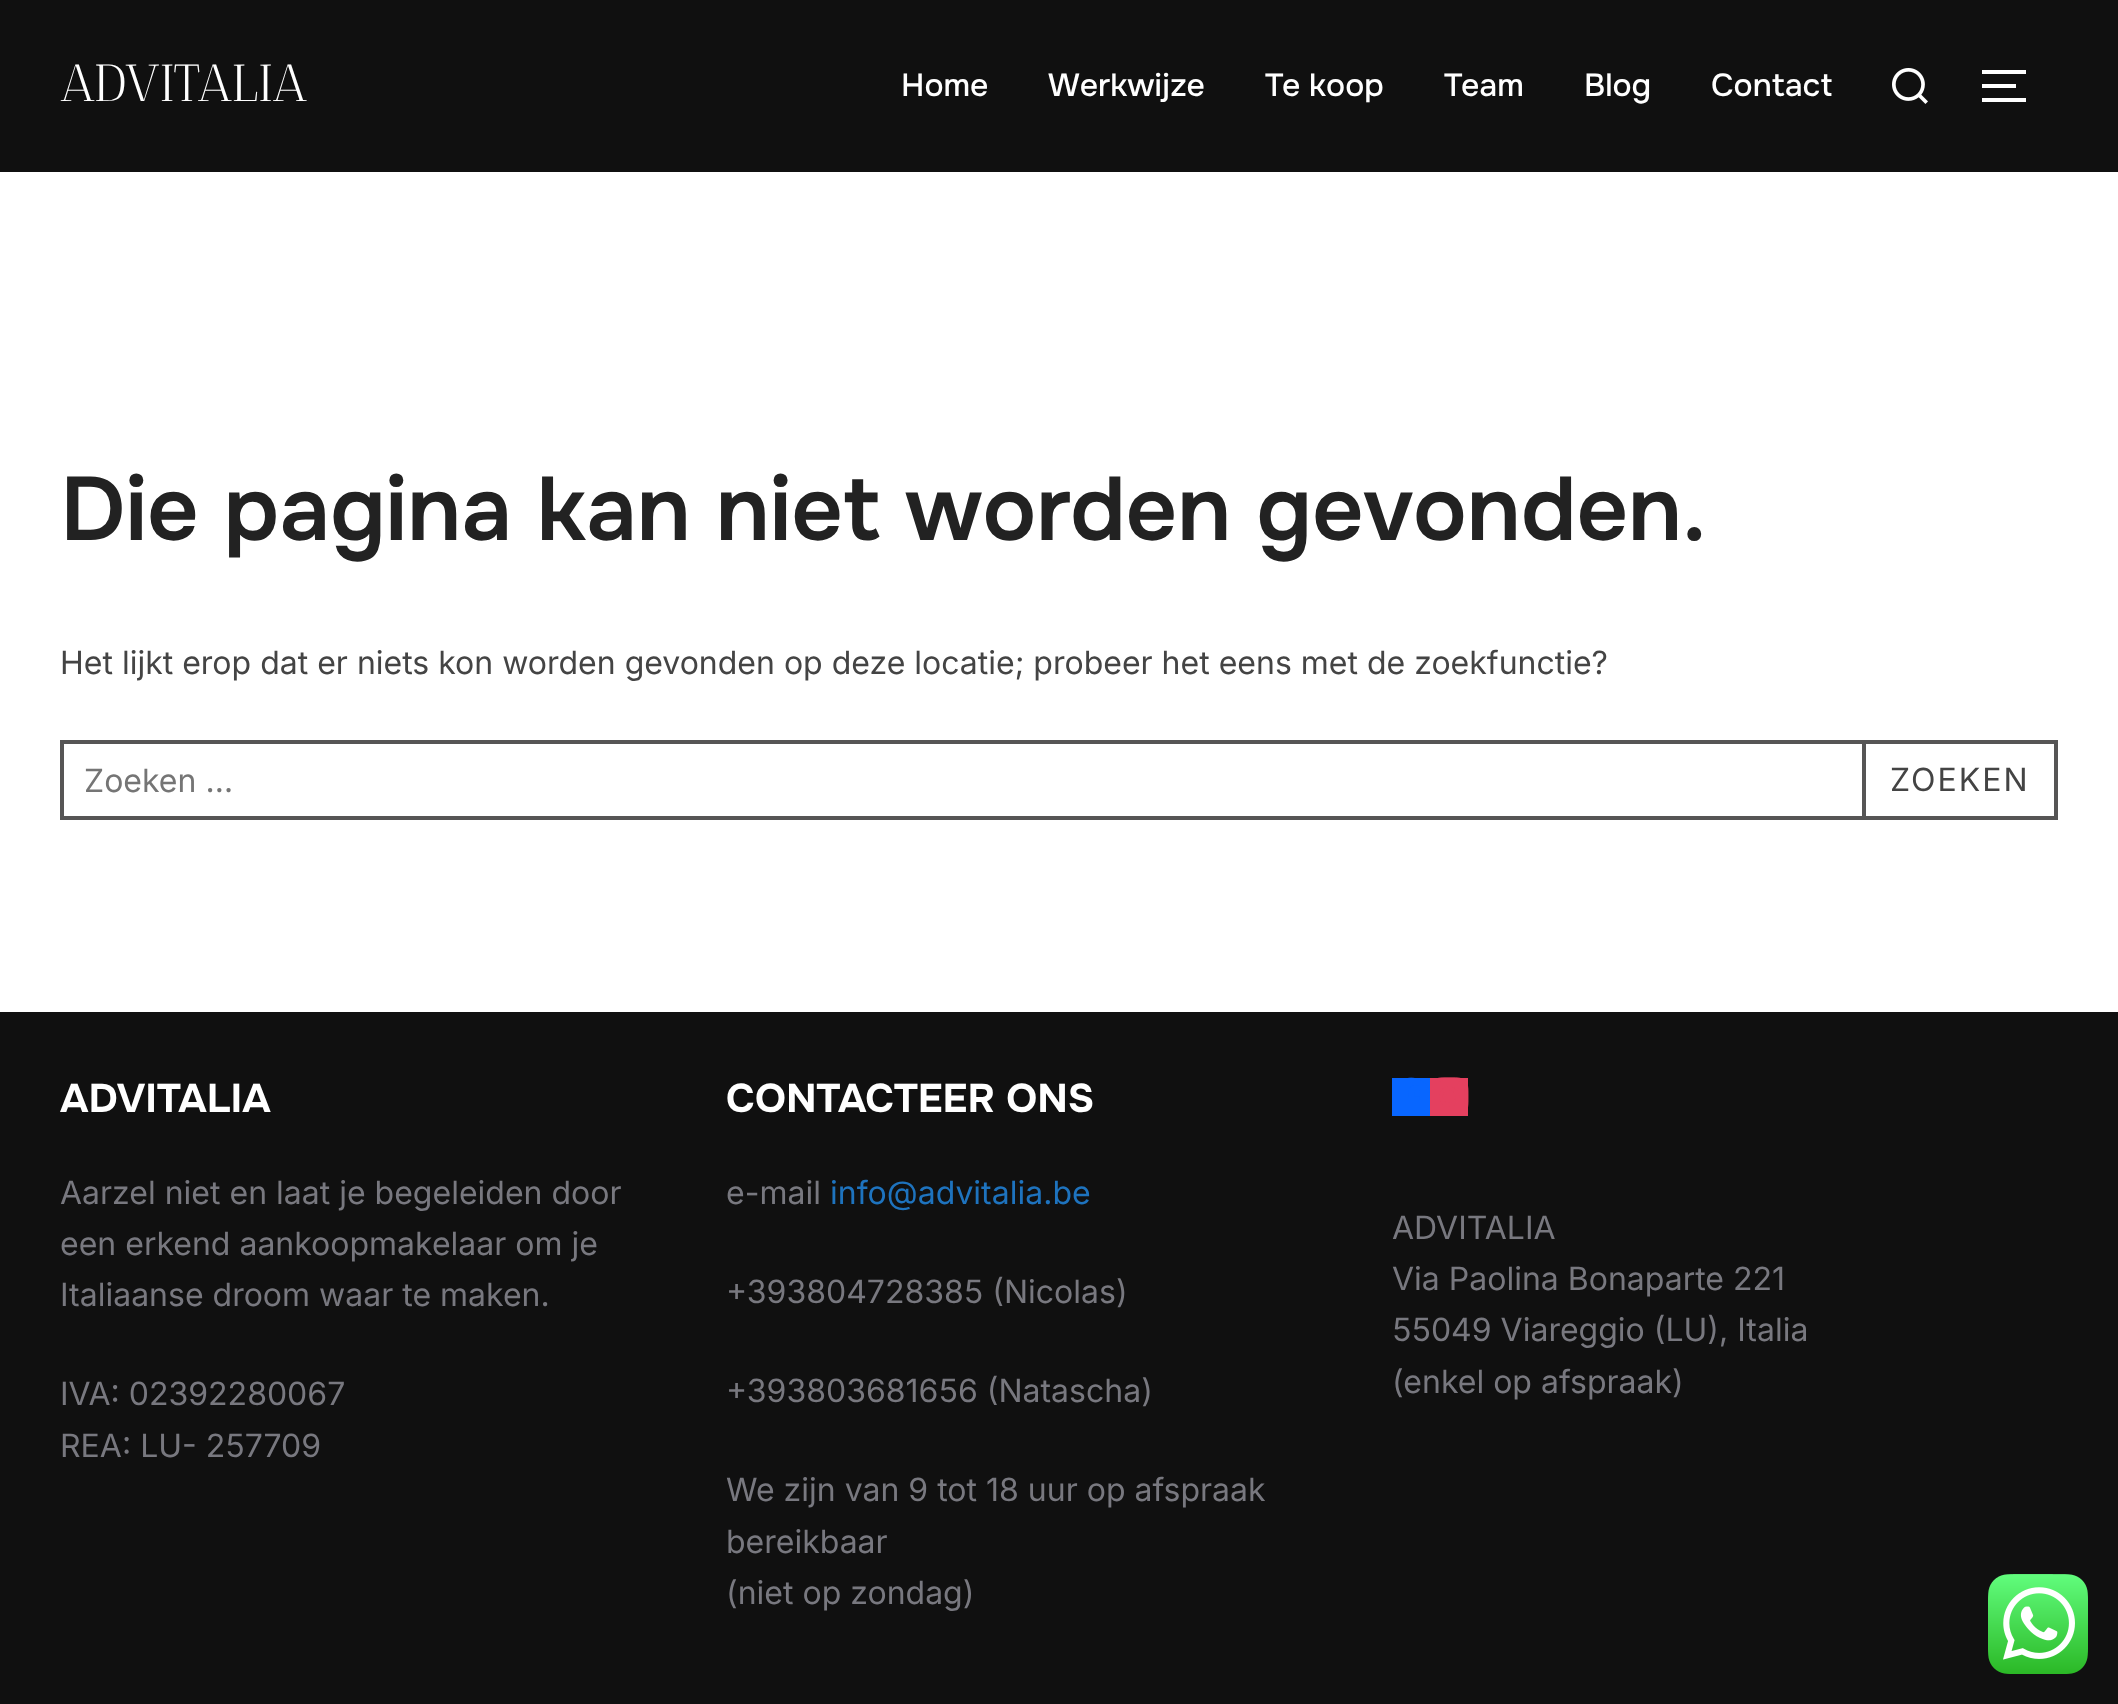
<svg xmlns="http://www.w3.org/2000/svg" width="2118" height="1704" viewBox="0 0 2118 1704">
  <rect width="100%" height="100%" fill="rgb(255,255,255)"/>
  <rect x="0" y="0" width="2118" height="172" fill="rgb(16,16,16)"/>
  <text x="60" y="101" font-family="Antic Didone" font-size="52" fill="rgb(255,255,255)">ADVITALIA</text>
  <g font-family="Onest" font-size="32" font-weight="500" fill="rgb(255,255,255)">
    <text x="901" y="96">Home</text>
    <text x="1048" y="96">Werkwijze</text>
    <text x="1265" y="96">Te koop</text>
    <text x="1444" y="96">Team</text>
    <text x="1584" y="96">Blog</text>
    <text x="1711" y="96">Contact</text>
  </g>
  <image x="1892" y="68" width="36" height="36" href="pic1.png"/>
  <rect x="1982" y="70" width="44" height="4" fill="rgb(255,255,255)"/>
  <rect x="1982" y="84" width="34" height="4" fill="rgb(255,255,255)"/>
  <rect x="1982" y="98" width="44" height="4" fill="rgb(255,255,255)"/>
  <text x="60" y="540" font-family="Onest" font-size="90" font-weight="600" fill="rgb(34,34,34)">Die pagina kan niet worden gevonden.</text>
  <text x="60" y="674" font-family="Inter" font-size="32" fill="rgb(68,68,68)">Het lijkt erop dat er niets kon worden gevonden op deze locatie; probeer het eens met de zoekfunctie?</text>
  <rect x="62" y="742" width="1994" height="76" fill="none" stroke="rgb(86,85,85)" stroke-width="4"/>
  <text x="84" y="792" font-family="Inter" font-size="32" fill="rgb(117,117,117)">Zoeken …</text>
  <rect x="1864" y="742" width="192" height="76" fill="none" stroke="rgb(86,85,85)" stroke-width="4"/>
  <text x="1890" y="791" font-family="Inter" font-size="32" letter-spacing="2" fill="rgb(68,68,68)">ZOEKEN</text>
  <rect x="0" y="1012" width="2118" height="692" fill="rgb(16,16,16)"/>
  <text x="60" y="1112" font-family="Onest" font-size="40" font-weight="bold" fill="rgb(255,255,255)">ADVITALIA</text>
  <g font-family="Inter" font-size="32" fill="rgb(120,120,127)">
    <text>
      <tspan x="60" y="1204">Aarzel niet en laat je begeleiden door</tspan>
      <tspan x="60" y="1255">een erkend aankoopmakelaar om je</tspan>
      <tspan x="60" y="1306">Italiaanse droom waar te maken.</tspan>
    </text>
    <text>
      <tspan x="60" y="1405">IVA: 02392280067</tspan>
      <tspan x="60" y="1457">REA: LU- 257709</tspan>
    </text>
  </g>
  <text x="726" y="1112" font-family="Onest" font-size="40" font-weight="bold" fill="rgb(255,255,255)">CONTACTEER ONS</text>
  <text x="726" y="1204" font-family="Inter" font-size="32" fill="rgb(120,120,127)">e-mail</text>
  <text x="830" y="1204" font-family="Inter" font-size="32" fill="rgb(30,115,190)">info@advitalia.be</text>
  <g font-family="Inter" font-size="32" fill="rgb(120,120,127)">
    <text x="726" y="1303">+393804728385 (Nicolas)</text>
    <text x="726" y="1402">+393803681656 (Natascha)</text>
    <text>
      <tspan x="726" y="1501">We zijn van 9 tot 18 uur op afspraak</tspan>
      <tspan x="726" y="1553">bereikbaar</tspan>
      <tspan x="726" y="1604">(niet op zondag)</tspan>
    </text>
  </g>
  <rect x="1392" y="1078" width="38" height="38" fill="rgb(8,102,255)"/>
  <image x="1408" y="1077" width="22" height="24" href="pic2.png"/>
  <rect x="1430" y="1078" width="38" height="38" fill="rgb(228,64,95)"/>
  <image x="1438" y="1077" width="31" height="30" href="pic3.png"/>
  <g font-family="Inter" font-size="32" fill="rgb(120,120,127)">
    <text>
      <tspan x="1392" y="1239">ADVITALIA</tspan>
      <tspan x="1392" y="1290">Via Paolina Bonaparte 221</tspan>
      <tspan x="1392" y="1341">55049 Viareggio (LU), Italia</tspan>
      <tspan x="1392" y="1393">(enkel op afspraak)</tspan>
    </text>
  </g>
  <image x="1988" y="1574" width="100" height="100" href="pic4.png"/>
</svg>
